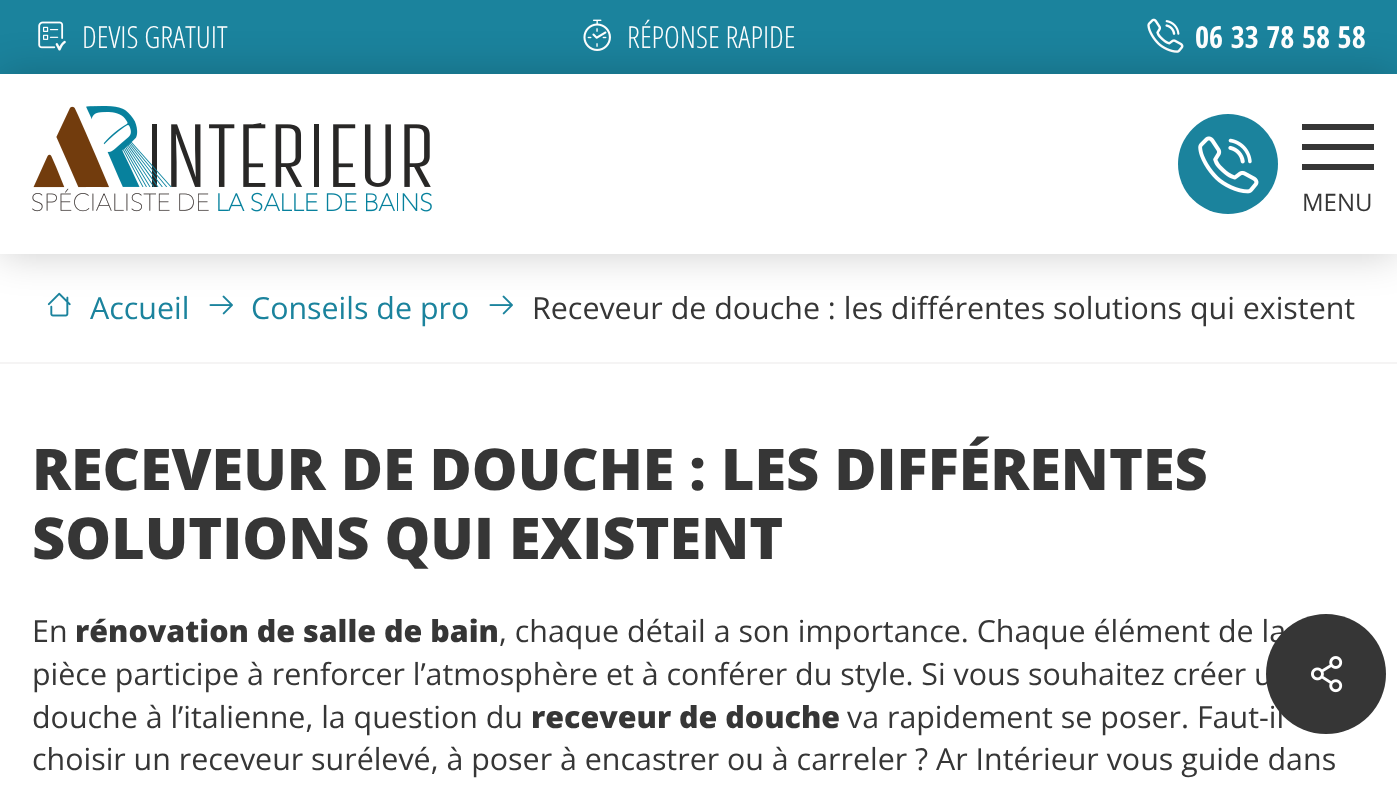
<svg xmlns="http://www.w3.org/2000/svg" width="1397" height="806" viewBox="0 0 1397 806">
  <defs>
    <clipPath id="clip1"><path d="M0 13H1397V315H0ZM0 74H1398V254H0Z" clip-rule="evenodd"/></clipPath>
  </defs>
  <rect width="100%" height="100%" fill="rgb(255,255,255)"/>
  <rect x="0" y="0" width="1397" height="74" fill="rgb(27,131,157)"/>
  <image x="38" y="21" width="28" height="30" href="pic1.png"/>
  <text x="82" y="48" font-family="Open Sans Condensed" font-size="30.4" font-weight="300" fill="rgb(255,255,255)">DEVIS GRATUIT</text>
  <image x="583" y="19" width="28" height="32" href="pic2.png"/>
  <text x="627" y="48" font-family="Open Sans Condensed" font-size="30.4" font-weight="300" fill="rgb(255,255,255)">RÉPONSE RAPIDE</text>
  <image x="1147" y="18" width="37" height="35" href="pic3.png"/>
  <text x="1195" y="48" font-family="Open Sans Condensed" font-size="30.4" font-weight="bold" fill="rgb(255,255,255)">06 33 78 58 58</text>
  <image x="47" y="292" width="24" height="25" href="pic6.png"/>
  <image x="209" y="295" width="24" height="20" href="pic7.png"/>
  <image x="489" y="295" width="24" height="20" href="pic7.png"/>
  <g clip-path="url(#clip1)">
    <rect x="0" y="74" width="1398" height="180" fill="rgba(0,0,0,0.2)" filter="blur(20px)"/>
  </g>
  <image x="32" y="106" width="400" height="106" href="pic4.png"/>
  <circle cx="1228" cy="164" r="50" fill="rgb(27,131,157)"/>
  <image x="1198" y="136" width="61" height="58" href="pic5.png"/>
  <rect x="1302" y="124" width="72" height="6" fill="rgb(54,54,54)"/>
  <rect x="1302" y="144" width="72" height="6" fill="rgb(54,54,54)"/>
  <rect x="1302" y="164" width="72" height="6" fill="rgb(54,54,54)"/>
  <text x="1302" y="211" font-family="Open Sans" font-size="24" fill="rgb(54,54,54)">MENU</text>
  <rect x="0" y="362" width="1397" height="2" fill="rgb(245,244,244)"/>
  <g font-family="Open Sans" font-size="30.4" fill="rgb(27,131,157)">
    <text x="90" y="319">Accueil</text>
    <text x="251" y="319">Conseils de pro</text>
  </g>
  <text x="532" y="319" font-family="Open Sans" font-size="30.4" fill="rgb(54,54,54)">Receveur de douche : les différentes solutions qui existent</text>
  <g font-family="Open Sans" font-size="57.6" font-weight="800" fill="rgb(54,54,54)">
    <text>
      <tspan x="32" y="490">RECEVEUR DE DOUCHE : LES DIFFÉRENTES</tspan>
      <tspan x="32" y="559">SOLUTIONS QUI EXISTENT</tspan>
    </text>
  </g>
  <text x="32" y="642" font-family="Open Sans" font-size="30.4" fill="rgb(54,54,54)">En</text>
  <text x="75" y="642" font-family="Open Sans" font-size="30.4" font-weight="800" fill="rgb(54,54,54)">rénovation de salle de bain</text>
  <g font-family="Open Sans" font-size="30.4" fill="rgb(54,54,54)">
    <text x="499" y="642">, chaque détail a son importance. Chaque élément de la</text>
    <text>
      <tspan x="32" y="685">pièce participe à renforcer l’atmosphère et à conférer du style. Si vous souhaitez créer u</tspan>
      <tspan x="32" y="728">douche à l’italienne, la question du</tspan>
    </text>
  </g>
  <text x="531" y="728" font-family="Open Sans" font-size="30.4" font-weight="800" fill="rgb(54,54,54)">receveur de douche</text>
  <g font-family="Open Sans" font-size="30.4" fill="rgb(54,54,54)">
    <text x="847" y="728">va rapidement se poser. Faut-il</text>
    <text x="32" y="770">choisir un receveur surélevé, à poser à encastrer ou à carreler ? Ar Intérieur vous guide dans</text>
  </g>
  <circle cx="1326" cy="674" r="60" fill="rgb(54,54,54)"/>
  <image x="1311" y="656" width="32" height="37" href="pic8.png"/>
</svg>
